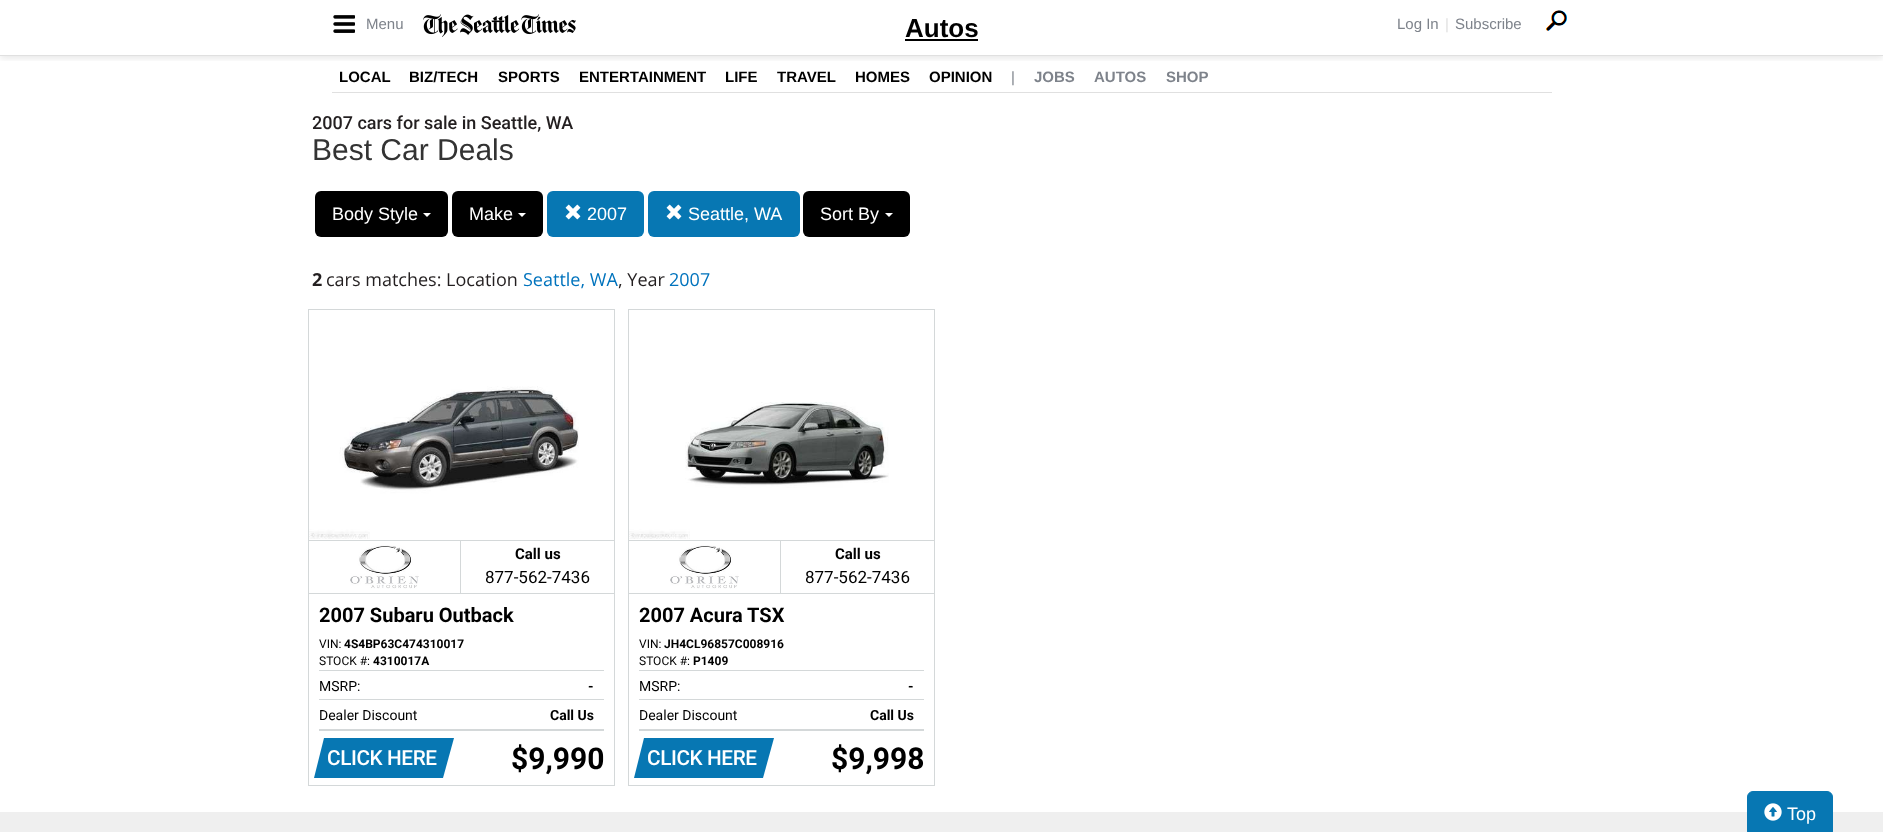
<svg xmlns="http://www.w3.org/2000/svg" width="1883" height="832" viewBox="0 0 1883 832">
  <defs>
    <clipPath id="clip1"><rect x="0" y="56" width="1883" height="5"/></clipPath>
  </defs>
  <rect width="100%" height="100%" fill="rgb(255,255,255)"/>
  <g clip-path="url(#clip1)">
    <rect x="0" y="2" width="1883" height="56" fill="rgba(0,0,0,0.1)" filter="blur(3.5px)"/>
  </g>
  <rect x="0" y="55" width="1883" height="1" fill="rgb(224,224,224)"/>
  <image x="333" y="15" width="22" height="18" href="pic1.png"/>
  <text x="366" y="29" font-family="Liberation Sans" font-size="15" fill="rgb(126,131,139)">Menu</text>
  <image x="423" y="14" width="153" height="23" href="pic2.png"/>
  <text x="1397" y="29" font-family="Liberation Sans" font-size="15" fill="rgb(126,131,139)">Log In</text>
  <text x="1445" y="29" font-family="Liberation Sans" font-size="15" fill="rgb(224,224,224)">|</text>
  <text x="1455" y="29" font-family="Liberation Sans" font-size="15" fill="rgb(126,131,139)">Subscribe</text>
  <image x="1546" y="10" width="21" height="21" href="pic3.png"/>
  <text x="905" y="37" font-family="Liberation Sans" font-size="26" font-weight="bold" fill="rgb(0,0,0)">Autos</text>
  <rect x="905" y="39" width="73" height="2" fill="rgb(0,0,0)"/>
  <rect x="332" y="92" width="1220" height="1" fill="rgb(224,224,224)"/>
  <g font-family="Liberation Sans" font-size="15" font-weight="bold" fill="rgb(0,0,0)">
    <text x="339" y="82">LOCAL</text>
    <text x="409" y="82">BIZ/TECH</text>
    <text x="498" y="82">SPORTS</text>
    <text x="579" y="82">ENTERTAINMENT</text>
    <text x="725" y="82">LIFE</text>
    <text x="777" y="82">TRAVEL</text>
    <text x="855" y="82">HOMES</text>
    <text x="929" y="82">OPINION</text>
  </g>
  <text x="1011" y="82" font-family="Liberation Sans" font-size="15" fill="rgb(126,131,139)">|</text>
  <g font-family="Liberation Sans" font-size="15" font-weight="bold" fill="rgb(126,131,139)">
    <text x="1034" y="82">JOBS</text>
    <text x="1094" y="82">AUTOS</text>
    <text x="1166" y="82">SHOP</text>
  </g>
  <text x="312" y="129" font-family="Roboto" font-size="18" font-weight="500" fill="rgb(35,31,32)">2007 cars for sale in Seattle, WA</text>
  <text x="312" y="160" font-family="Liberation Sans" font-size="30" fill="rgb(51,51,51)">Best Car Deals</text>
  <rect x="315" y="191" width="133" height="46" rx="6" fill="rgb(0,0,0)"/>
  <text x="332" y="220" font-family="Liberation Sans" font-size="18" fill="rgb(255,255,255)">Body Style</text>
  <path d="M423 213H431L427 217Z" fill="rgb(255,255,255)"/>
  <rect x="452" y="191" width="91" height="46" rx="6" fill="rgb(0,0,0)"/>
  <text x="469" y="220" font-family="Liberation Sans" font-size="18" fill="rgb(255,255,255)">Make</text>
  <path d="M518 213H526L522 217Z" fill="rgb(255,255,255)"/>
  <rect x="547" y="191" width="97" height="46" rx="6" fill="rgb(7,119,179)"/>
  <image x="565" y="204" width="16" height="16" href="pic4.png"/>
  <text x="587" y="220" font-family="Liberation Sans" font-size="18" fill="rgb(255,255,255)">2007</text>
  <rect x="648" y="191" width="152" height="46" rx="6" fill="rgb(7,119,179)"/>
  <image x="666" y="204" width="16" height="16" href="pic4.png"/>
  <text x="688" y="220" font-family="Liberation Sans" font-size="18" fill="rgb(255,255,255)">Seattle, WA</text>
  <rect x="803" y="191" width="107" height="46" rx="6" fill="rgb(0,0,0)"/>
  <text x="820" y="220" font-family="Liberation Sans" font-size="18" fill="rgb(255,255,255)">Sort By</text>
  <path d="M885 213H893L889 217Z" fill="rgb(255,255,255)"/>
  <text x="312" y="286" font-family="Open Sans" font-size="18" font-weight="bold" fill="rgb(35,31,32)">2</text>
  <text x="326" y="286" font-family="Open Sans" font-size="18" fill="rgb(35,31,32)">cars matches: Location</text>
  <text x="523" y="286" font-family="Open Sans" font-size="18" fill="rgb(0,115,189)">Seattle, WA</text>
  <text x="618" y="286" font-family="Open Sans" font-size="18" fill="rgb(35,31,32)">, Year</text>
  <text x="669" y="286" font-family="Open Sans" font-size="18" fill="rgb(0,115,189)">2007</text>
  <rect x="308.5" y="309.5" width="306" height="476" fill="none" stroke="rgb(212,216,217)"/>
  <image x="309" y="386" width="270" height="153" href="pic5.png"/>
  <rect x="309" y="540" width="305" height="1" fill="rgb(212,216,217)"/>
  <rect x="460" y="540" width="1" height="54" fill="rgb(212,216,217)"/>
  <rect x="309" y="593" width="305" height="1" fill="rgb(212,216,217)"/>
  <image x="350" y="545" width="69" height="44" href="pic6.png"/>
  <text x="515" y="559" font-family="Roboto" font-size="15" font-weight="bold" fill="rgb(0,0,0)">Call us</text>
  <text x="485" y="583" font-family="Roboto" font-size="17" fill="rgb(0,0,0)">877-562-7436</text>
  <text x="319" y="622" font-family="Roboto" font-size="20" font-weight="bold" fill="rgb(0,0,0)">2007 Subaru Outback</text>
  <text x="319" y="648" font-family="Roboto" font-size="12" fill="rgb(0,0,0)">VIN:</text>
  <text x="344" y="648" font-family="Roboto" font-size="12" font-weight="bold" fill="rgb(0,0,0)">4S4BP63C474310017</text>
  <text x="319" y="665" font-family="Roboto" font-size="12" fill="rgb(0,0,0)">STOCK #:</text>
  <text x="373" y="665" font-family="Roboto" font-size="12" font-weight="bold" fill="rgb(0,0,0)">4310017A</text>
  <rect x="319" y="670" width="285" height="1" fill="rgb(212,216,217)"/>
  <rect x="319" y="699" width="285" height="1" fill="rgb(212,216,217)"/>
  <text x="319" y="691" font-family="Roboto" font-size="14" fill="rgb(0,0,0)">MSRP:</text>
  <text x="588" y="691" font-family="Roboto" font-size="14" font-weight="bold" fill="rgb(0,0,0)">-</text>
  <rect x="319" y="729" width="285" height="2" fill="rgb(212,216,217)"/>
  <text x="319" y="720" font-family="Roboto" font-size="14" fill="rgb(0,0,0)">Dealer Discount</text>
  <text x="550" y="720" font-family="Roboto" font-size="14" font-weight="bold" fill="rgb(0,0,0)">Call Us</text>
  <path d="M324 738H454L443 778H314Z" fill="rgb(7,119,179)"/>
  <text x="327" y="765" font-family="Roboto" font-size="20.75" font-weight="500" letter-spacing="-0.4" fill="rgb(255,255,255)">CLICK HERE</text>
  <text x="511" y="769" font-family="Roboto" font-size="30" font-weight="bold" fill="rgb(0,0,0)">$9,990</text>
  <rect x="628.5" y="309.5" width="306" height="476" fill="none" stroke="rgb(212,216,217)"/>
  <image x="629" y="402" width="260" height="137" href="pic7.png"/>
  <rect x="629" y="540" width="305" height="1" fill="rgb(212,216,217)"/>
  <rect x="780" y="540" width="1" height="54" fill="rgb(212,216,217)"/>
  <rect x="629" y="593" width="305" height="1" fill="rgb(212,216,217)"/>
  <image x="670" y="545" width="69" height="44" href="pic6.png"/>
  <text x="835" y="559" font-family="Roboto" font-size="15" font-weight="bold" fill="rgb(0,0,0)">Call us</text>
  <text x="805" y="583" font-family="Roboto" font-size="17" fill="rgb(0,0,0)">877-562-7436</text>
  <text x="639" y="622" font-family="Roboto" font-size="20" font-weight="bold" fill="rgb(0,0,0)">2007 Acura TSX</text>
  <text x="639" y="648" font-family="Roboto" font-size="12" fill="rgb(0,0,0)">VIN:</text>
  <text x="664" y="648" font-family="Roboto" font-size="12" font-weight="bold" fill="rgb(0,0,0)">JH4CL96857C008916</text>
  <text x="639" y="665" font-family="Roboto" font-size="12" fill="rgb(0,0,0)">STOCK #:</text>
  <text x="693" y="665" font-family="Roboto" font-size="12" font-weight="bold" fill="rgb(0,0,0)">P1409</text>
  <rect x="639" y="670" width="285" height="1" fill="rgb(212,216,217)"/>
  <rect x="639" y="699" width="285" height="1" fill="rgb(212,216,217)"/>
  <text x="639" y="691" font-family="Roboto" font-size="14" fill="rgb(0,0,0)">MSRP:</text>
  <text x="908" y="691" font-family="Roboto" font-size="14" font-weight="bold" fill="rgb(0,0,0)">-</text>
  <rect x="639" y="729" width="285" height="2" fill="rgb(212,216,217)"/>
  <text x="639" y="720" font-family="Roboto" font-size="14" fill="rgb(0,0,0)">Dealer Discount</text>
  <text x="870" y="720" font-family="Roboto" font-size="14" font-weight="bold" fill="rgb(0,0,0)">Call Us</text>
  <path d="M644 738H774L763 778H634Z" fill="rgb(7,119,179)"/>
  <text x="647" y="765" font-family="Roboto" font-size="20.75" font-weight="500" letter-spacing="-0.4" fill="rgb(255,255,255)">CLICK HERE</text>
  <text x="831" y="769" font-family="Roboto" font-size="30" font-weight="bold" fill="rgb(0,0,0)">$9,998</text>
  <rect x="0" y="812" width="1883" height="20" fill="rgb(239,239,239)"/>
  <rect x="1747.5" y="791.5" width="85" height="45" rx="5.5" fill="rgb(7,119,179)" stroke="rgb(7,119,179)"/>
  <image x="1764" y="803" width="18" height="18" href="pic8.png"/>
  <text x="1787" y="820" font-family="Liberation Sans" font-size="18" fill="rgb(255,255,255)">Top</text>
</svg>
